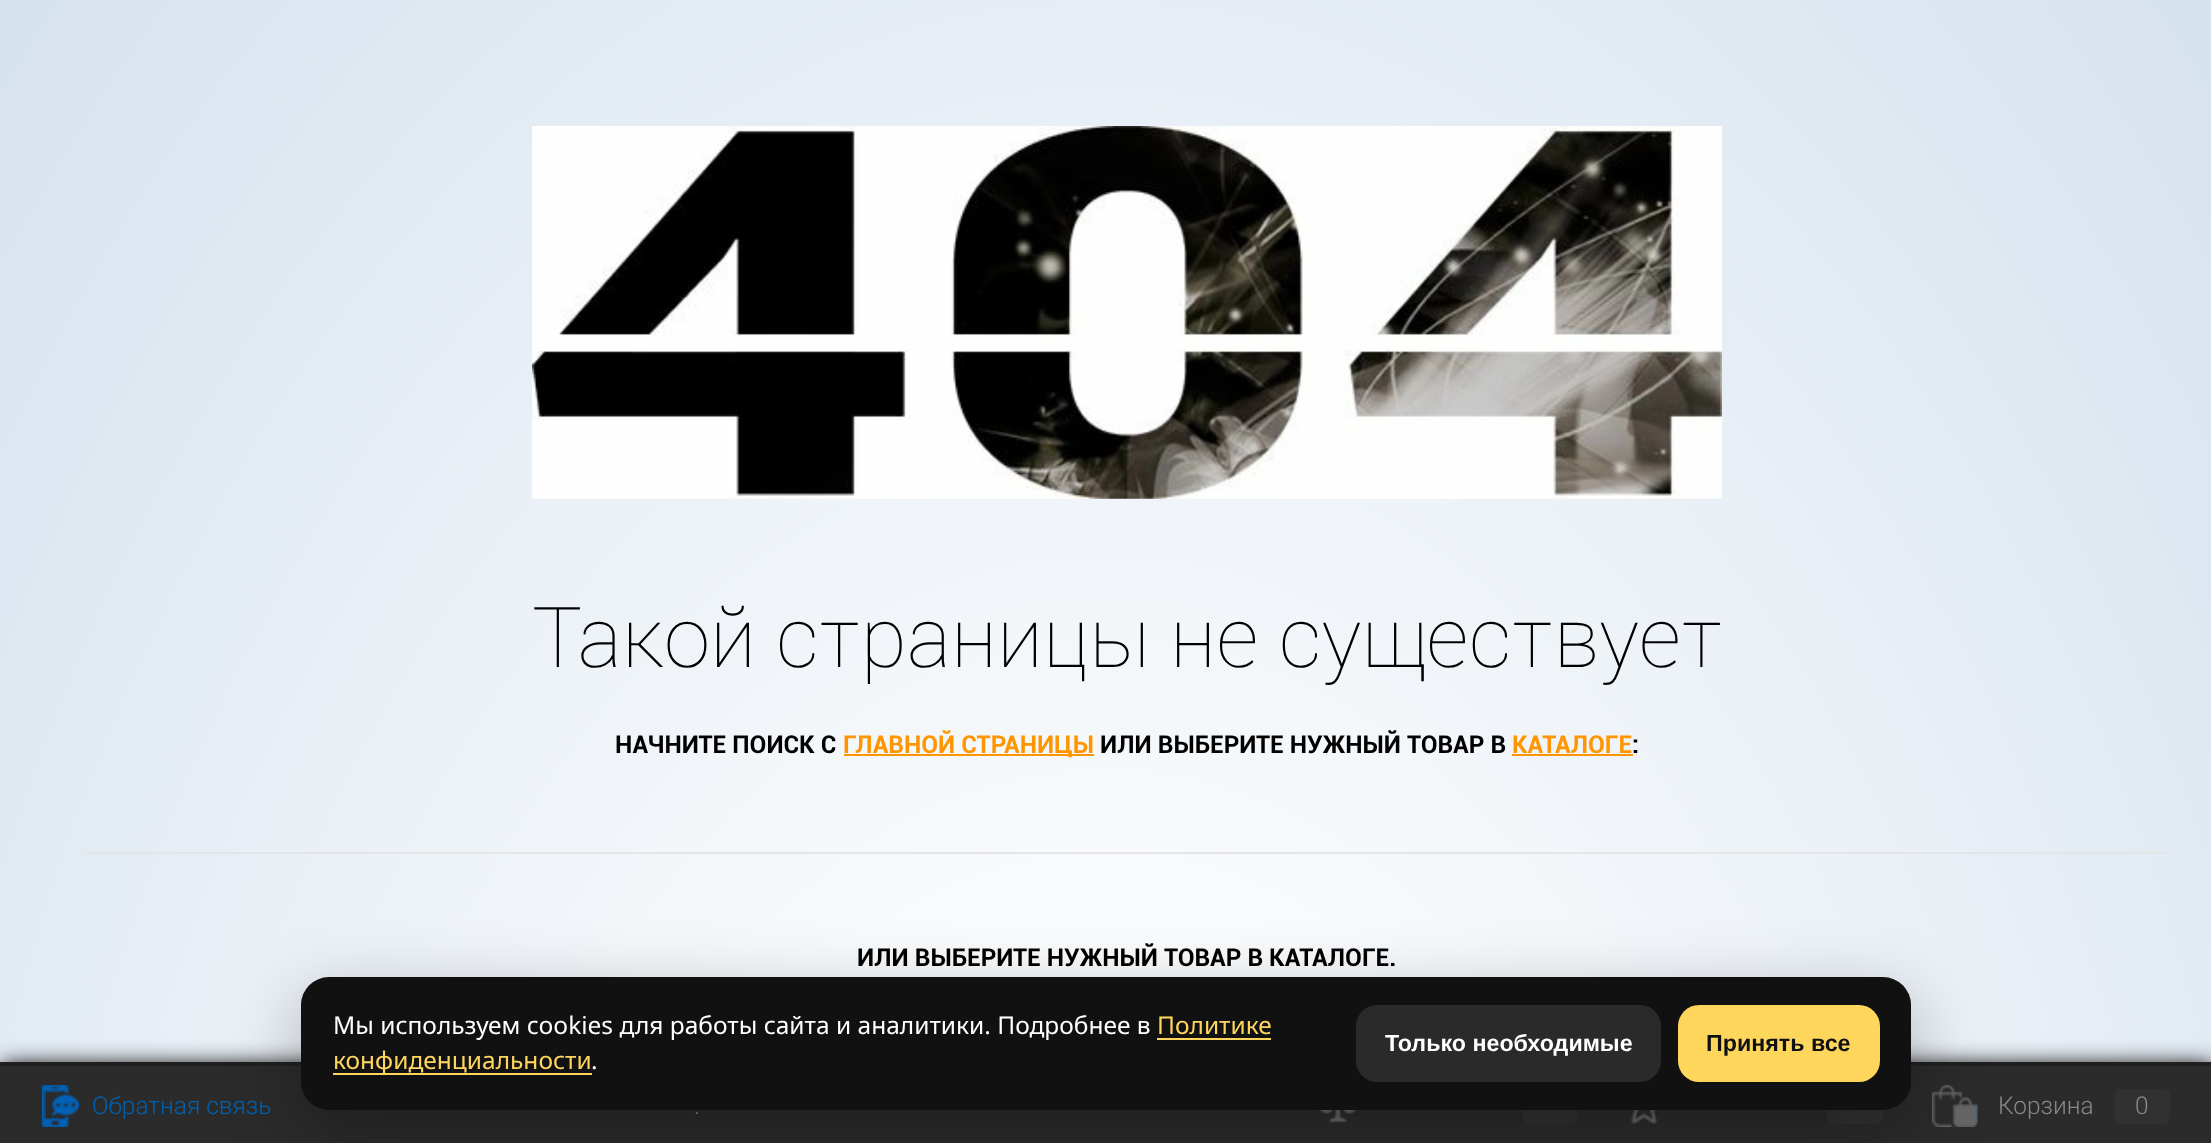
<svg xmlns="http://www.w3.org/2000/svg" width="2211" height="1143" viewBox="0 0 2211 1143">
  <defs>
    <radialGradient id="g1" gradientUnits="userSpaceOnUse" cx="0" cy="0" r="1" gradientTransform="matrix(1564 0 0 2481 1106 1754)"><stop offset="0.22" stop-color="rgb(255,255,255)"/><stop offset="1" stop-color="rgb(214,226,238)"/></radialGradient>
  </defs>
  <rect width="100%" height="100%" fill="rgb(255,255,255)"/>
  <rect x="0" y="0" width="2211" height="1062" fill="url(#g1)"/>
  <image x="532" y="126" width="1190" height="373" href="pic1.png"/>
  <text x="532" y="667" font-family="Roboto" font-size="84" font-weight="100" fill="rgb(0,0,0)">Такой страницы не существует</text>
  <text x="615" y="753" font-family="Roboto" font-size="24.5" font-weight="bold" fill="rgb(0,0,0)">НАЧНИТЕ ПОИСК С</text>
  <rect x="844" y="754" width="250" height="2" fill="rgb(255,150,1)"/>
  <text x="843" y="753" font-family="Roboto" font-size="24.5" font-weight="bold" fill="rgb(255,150,1)">ГЛАВНОЙ СТРАНИЦЫ</text>
  <text x="1100" y="753" font-family="Roboto" font-size="24.5" font-weight="bold" fill="rgb(0,0,0)">ИЛИ ВЫБЕРИТЕ НУЖНЫЙ ТОВАР В</text>
  <text x="1512" y="753" font-family="Roboto" font-size="24.5" font-weight="bold" fill="rgb(255,150,1)">КАТАЛОГЕ</text>
  <rect x="1512" y="754" width="121" height="2" fill="rgb(255,150,1)"/>
  <text x="1632" y="753" font-family="Roboto" font-size="24.5" font-weight="bold" fill="rgb(0,0,0)">:</text>
  <rect x="84" y="852" width="2086" height="2" fill="rgb(229,229,229)"/>
  <text x="857" y="966" font-family="Roboto" font-size="24.5" font-weight="bold" fill="rgb(0,0,0)">ИЛИ ВЫБЕРИТЕ НУЖНЫЙ ТОВАР В КАТАЛОГЕ.</text>
  <rect x="2" y="1064" width="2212" height="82" fill="rgb(0,0,0)" filter="blur(10.5px)"/>
  <rect x="0" y="1066" width="2211" height="77" fill="rgb(43,43,43)"/>
  <rect x="0" y="1062" width="2211" height="4" fill="rgb(32,32,32)"/>
  <image x="42" y="1085" width="37" height="42" href="pic2.png"/>
  <text x="92" y="1114" font-family="Roboto" font-size="24.5" font-weight="300" fill="rgb(0,97,178)">Обратная связь</text>
  <text x="694" y="1114" font-family="Roboto" font-size="24.5" font-weight="300" fill="rgb(136,136,136)">.</text>
  <image x="1319" y="1110" width="38" height="13" href="pic3.png"/>
  <rect x="1523" y="1089" width="54" height="35" rx="7" fill="rgb(49,49,49)"/>
  <image x="1630" y="1110" width="28" height="14" href="pic4.png"/>
  <rect x="1827" y="1089" width="56" height="35" rx="7" fill="rgb(49,49,49)"/>
  <image x="1932" y="1085" width="46" height="42" href="pic5.png"/>
  <text x="1998" y="1114" font-family="Roboto" font-size="24.5" font-weight="300" fill="rgb(136,136,136)">Корзина</text>
  <rect x="2114" y="1089" width="56" height="35" rx="7" fill="rgb(49,49,49)"/>
  <text x="2135" y="1114" font-family="Roboto" font-size="24.5" font-weight="300" fill="rgb(136,136,136)">0</text>
  <rect x="301" y="998" width="1610" height="133" rx="28" fill="rgba(0,0,0,0.28)" filter="blur(35px)"/>
  <rect x="301" y="977" width="1610" height="133" rx="28" fill="rgb(17,17,17)"/>
  <text x="333" y="1034" font-family="Noto Sans" font-size="24.5" fill="rgb(255,255,255)">Мы используем cookies для работы сайта и аналитики. Подробнее в</text>
  <text x="1157" y="1034" font-family="Noto Sans" font-size="24.5" fill="rgb(255,214,92)">Политике</text>
  <rect x="1157" y="1038" width="114" height="2" fill="rgb(255,214,92)"/>
  <rect x="333" y="1073" width="259" height="2" fill="rgb(255,214,92)"/>
  <text x="333" y="1069" font-family="Noto Sans" font-size="24.5" fill="rgb(255,214,92)">конфиденциальности</text>
  <text x="591" y="1069" font-family="Noto Sans" font-size="24.5" fill="rgb(255,255,255)">.</text>
  <rect x="1356" y="1005" width="305" height="77" rx="21" fill="rgb(42,42,42)"/>
  <text x="1385" y="1051" font-family="Liberation Sans" font-size="23.25" font-weight="bold" fill="rgb(255,255,255)">Только необходимые</text>
  <rect x="1678" y="1005" width="202" height="77" rx="21" fill="rgb(255,214,92)"/>
  <text x="1706" y="1051" font-family="Liberation Sans" font-size="23.25" font-weight="bold" fill="rgb(17,17,17)">Принять все</text>
</svg>
